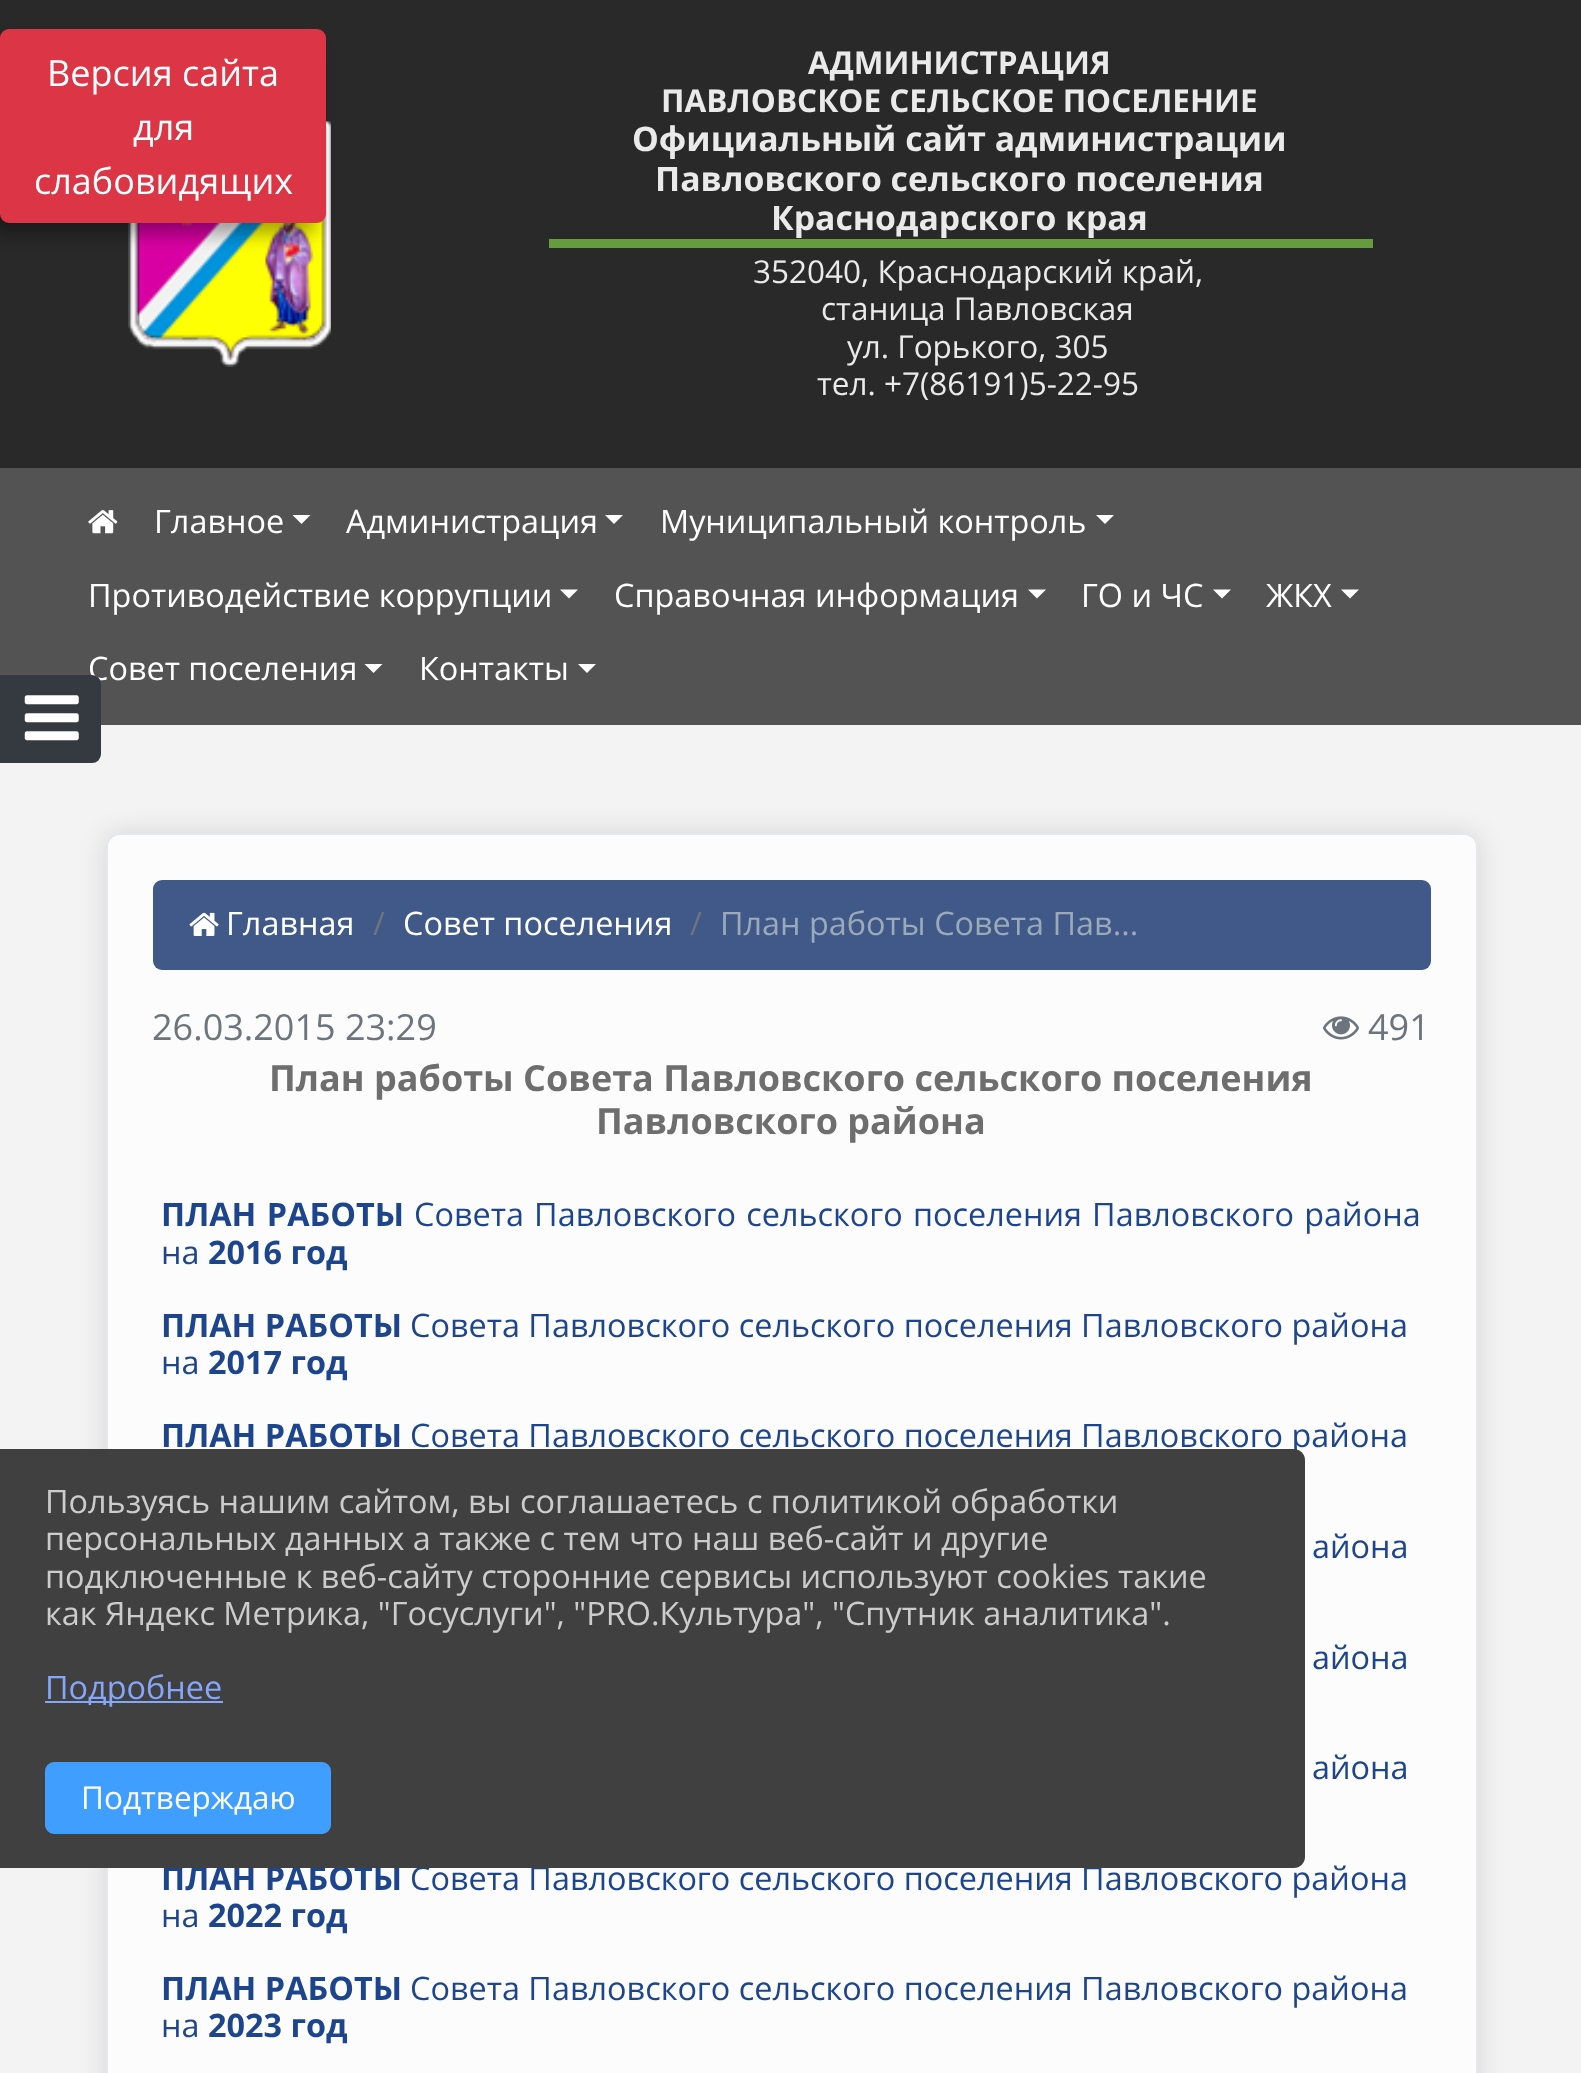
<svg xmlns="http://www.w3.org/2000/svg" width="1581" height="2073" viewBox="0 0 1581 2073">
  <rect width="100%" height="100%" fill="rgb(243,243,243)"/>
  <rect x="0" y="0" width="1581" height="468" fill="rgb(41,41,41)"/>
  <image x="128" y="121" width="203" height="246" href="pic1.png"/>
  <g font-family="Open Sans" font-size="31.5" font-weight="bold" fill="rgb(234,234,234)">
    <text x="808" y="74">АДМИНИСТРАЦИЯ</text>
    <text x="661" y="112">ПАВЛОВСКОЕ СЕЛЬСКОЕ ПОСЕЛЕНИЕ</text>
  </g>
  <g font-family="Open Sans" font-size="33.75" font-weight="bold" fill="rgb(234,234,234)">
    <text x="632" y="151">Официальный сайт администрации</text>
    <text x="655" y="191">Павловского сельского поселения</text>
    <text x="771" y="230">Краснодарского края</text>
  </g>
  <rect x="549" y="239" width="824" height="9" fill="rgb(101,157,62)"/>
  <g font-family="Open Sans" font-size="31.5" fill="rgb(234,234,234)">
    <text x="753" y="283">352040, Краснодарский край,</text>
    <text x="821" y="320">станица Павловская</text>
    <text x="847" y="358">ул. Горького, 305</text>
    <text x="817" y="395">тел. +7(86191)5-22-95</text>
  </g>
  <rect x="0" y="468" width="1581" height="257" fill="rgb(83,83,83)"/>
  <image x="88" y="510" width="30" height="24" href="pic2.png"/>
  <text x="154" y="533" font-family="Open Sans" font-size="32.4" fill="rgb(255,255,255)">Главное</text>
  <path d="M292.5 515H310.5L301.5 524Z" fill="rgb(255,255,255)"/>
  <text x="346" y="533" font-family="Open Sans" font-size="32.4" fill="rgb(255,255,255)">Администрация</text>
  <path d="M605 515H623L614 524Z" fill="rgb(255,255,255)"/>
  <text x="660" y="533" font-family="Open Sans" font-size="32.4" fill="rgb(255,255,255)">Муниципальный контроль</text>
  <path d="M1096 515H1114L1105 524Z" fill="rgb(255,255,255)"/>
  <text x="88" y="607" font-family="Open Sans" font-size="32.4" fill="rgb(255,255,255)">Противодействие коррупции</text>
  <path d="M560 589.5H578L569 598.5Z" fill="rgb(255,255,255)"/>
  <text x="614" y="607" font-family="Open Sans" font-size="32.4" fill="rgb(255,255,255)">Справочная информация</text>
  <path d="M1028 589.5H1046L1037 598.5Z" fill="rgb(255,255,255)"/>
  <text x="1081" y="607" font-family="Open Sans" font-size="32.4" fill="rgb(255,255,255)">ГО и ЧС</text>
  <path d="M1213 589.5H1231L1222 598.5Z" fill="rgb(255,255,255)"/>
  <text x="1266" y="607" font-family="Open Sans" font-size="32.4" fill="rgb(255,255,255)">ЖКХ</text>
  <path d="M1341 589.5H1359L1350 598.5Z" fill="rgb(255,255,255)"/>
  <text x="88" y="680" font-family="Open Sans" font-size="32.4" fill="rgb(255,255,255)">Совет поселения</text>
  <path d="M364.5 664H382.5L373.5 673Z" fill="rgb(255,255,255)"/>
  <text x="419" y="680" font-family="Open Sans" font-size="32.4" fill="rgb(255,255,255)">Контакты</text>
  <path d="M578 664H596L587 673Z" fill="rgb(255,255,255)"/>
  <rect x="106" y="833" width="1372" height="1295" rx="14" fill="rgba(0,0,0,0.12)" filter="blur(13.5px)"/>
  <path d="M120 833H1464C1471.5 833 1478 839.5 1478 847V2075H106V847C106 839.5 112.5 833 120 833Z" fill="rgb(252,252,252)"/>
  <rect x="107" y="834" width="1370" height="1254" rx="13" fill="none" stroke="rgb(228,231,237)" stroke-width="2"/>
  <rect x="153" y="880" width="1278" height="90" rx="9" fill="rgb(64,89,136)"/>
  <image x="189" y="912" width="30" height="24" href="pic3.png"/>
  <text x="226" y="935" font-family="Open Sans" font-size="32.4" fill="rgb(255,255,255)">Главная</text>
  <text x="373" y="935" font-family="Open Sans" font-size="32.4" fill="rgb(108,117,125)">/</text>
  <text x="403" y="935" font-family="Open Sans" font-size="32.4" fill="rgb(255,255,255)">Совет поселения</text>
  <text x="690" y="935" font-family="Open Sans" font-size="32.4" fill="rgb(108,117,125)">/</text>
  <text x="720" y="935" font-family="Open Sans" font-size="32.4" fill="rgb(154,170,185)">План работы Совета Пав...</text>
  <text x="152" y="1040" font-family="Open Sans" font-size="36" fill="rgb(108,117,125)">26.03.2015 23:29</text>
  <image x="1323" y="1016" width="36" height="24" href="pic4.png"/>
  <text x="1368" y="1040" font-family="Open Sans" font-size="36" fill="rgb(108,117,125)">491</text>
  <g font-family="Open Sans" font-size="36" font-weight="bold" fill="rgb(111,110,110)">
    <text x="269" y="1091">План работы Совета Павловского сельского поселения</text>
    <text x="596" y="1134">Павловского района</text>
  </g>
  <text x="161" y="1226" word-spacing="2" font-family="Open Sans" font-size="32.4" font-weight="bold" fill="rgb(29,69,141)">ПЛАН РАБОТЫ</text>
  <g font-family="Open Sans" font-size="32.4" fill="rgb(29,69,141)">
    <text x="414" y="1226" word-spacing="1.75">Совета Павловского сельского поселения Павловского района</text>
    <text x="161" y="1264">на</text>
  </g>
  <g font-family="Open Sans" font-size="32.4" font-weight="bold" fill="rgb(29,69,141)">
    <text x="208" y="1264">2016 год</text>
    <text x="161" y="1337">ПЛАН РАБОТЫ</text>
  </g>
  <g font-family="Open Sans" font-size="32.4" fill="rgb(29,69,141)">
    <text x="410" y="1337">Совета Павловского сельского поселения Павловского района</text>
    <text x="161" y="1374">на</text>
  </g>
  <g font-family="Open Sans" font-size="32.4" font-weight="bold" fill="rgb(29,69,141)">
    <text x="208" y="1374">2017 год</text>
    <text x="161" y="1447">ПЛАН РАБОТЫ</text>
  </g>
  <g font-family="Open Sans" font-size="32.4" fill="rgb(29,69,141)">
    <text x="410" y="1447">Совета Павловского сельского поселения Павловского района</text>
    <text x="1312" y="1558">айона</text>
    <text x="1312" y="1669">айона</text>
    <text x="1312" y="1779">айона</text>
  </g>
  <text x="161" y="1890" font-family="Open Sans" font-size="32.4" font-weight="bold" fill="rgb(29,69,141)">ПЛАН РАБОТЫ</text>
  <g font-family="Open Sans" font-size="32.4" fill="rgb(29,69,141)">
    <text x="410" y="1890">Совета Павловского сельского поселения Павловского района</text>
    <text x="161" y="1927">на</text>
  </g>
  <g font-family="Open Sans" font-size="32.4" font-weight="bold" fill="rgb(29,69,141)">
    <text x="208" y="1927">2022 год</text>
    <text x="161" y="2000">ПЛАН РАБОТЫ</text>
  </g>
  <g font-family="Open Sans" font-size="32.4" fill="rgb(29,69,141)">
    <text x="410" y="2000">Совета Павловского сельского поселения Павловского района</text>
    <text x="161" y="2037">на</text>
  </g>
  <text x="208" y="2037" font-family="Open Sans" font-size="32.4" font-weight="bold" fill="rgb(29,69,141)">2023 год</text>
  <rect x="-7" y="45" width="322" height="189" rx="7" fill="rgba(0,0,0,0.35)" filter="blur(9px)"/>
  <rect x="1" y="30" width="324" height="192" rx="8" fill="rgb(220,53,69)" stroke="rgb(220,53,69)" stroke-width="2"/>
  <g font-family="Open Sans" font-size="36" fill="rgb(255,255,255)">
    <text x="47" y="86">Версия сайта</text>
    <text x="133" y="140">для</text>
    <text x="34" y="194">слабовидящих</text>
  </g>
  <path d="M1 676H92C96.5 676 100 679.5 100 684V754C100 758.5 96.5 762 92 762H1Z" fill="rgb(52,58,64)" stroke="rgb(52,58,64)" stroke-width="2"/>
  <image x="24" y="695" width="55" height="46" href="pic5.png"/>
  <path d="M0 1449H1294C1300 1449 1305 1454 1305 1460V1857C1305 1863 1300 1868 1294 1868H0Z" fill="rgb(64,64,64)"/>
  <g font-family="Open Sans" font-size="32.4" fill="rgb(204,204,204)">
    <text>
      <tspan x="45" y="1513">Пользуясь нашим сайтом, вы соглашаетесь с политикой обработки</tspan>
      <tspan x="45" y="1550">персональных данных а также с тем что наш веб-сайт и другие</tspan>
      <tspan x="45" y="1588">подключенные к веб-сайту сторонние сервисы используют cookies такие</tspan>
      <tspan x="45" y="1625">как Яндекс Метрика, "Госуслуги", "PRO.Культура", "Спутник аналитика".</tspan>
    </text>
  </g>
  <rect x="45" y="1701" width="178" height="2" fill="rgb(133,166,249)"/>
  <text x="45" y="1699" font-family="Open Sans" font-size="32.4" fill="rgb(133,166,249)">Подробнее</text>
  <rect x="46" y="1763" width="284" height="70" rx="8" fill="rgb(64,158,255)" stroke="rgb(64,158,255)" stroke-width="2"/>
  <text x="81" y="1809" font-family="Open Sans" font-size="31.5" fill="rgb(255,255,255)">Подтверждаю</text>
</svg>
